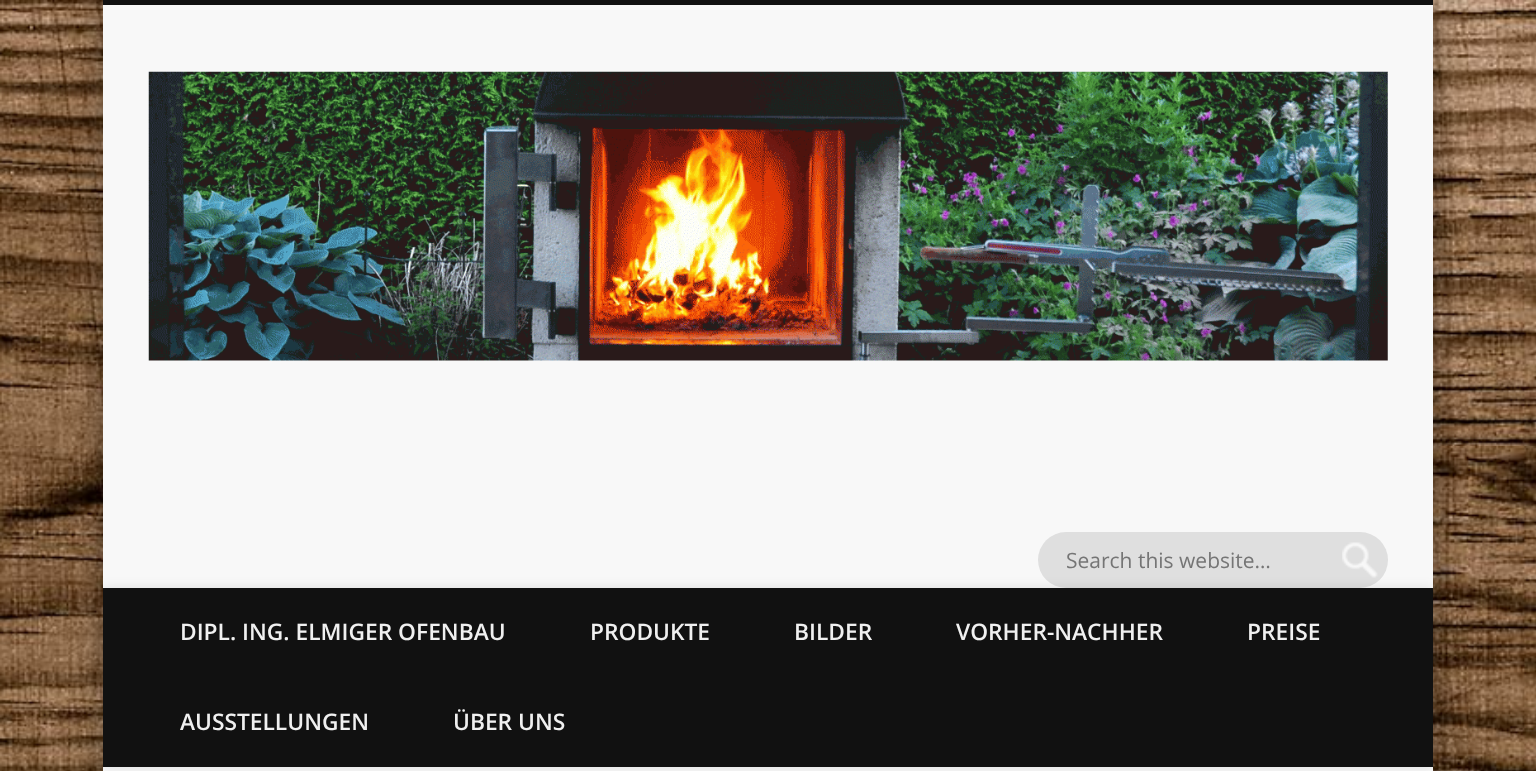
<svg xmlns="http://www.w3.org/2000/svg" width="1536" height="771" viewBox="0 0 1536 771">
  <defs>
    <clipPath id="clip1"><rect x="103" y="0" width="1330" height="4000"/></clipPath>
  </defs>
  <rect width="100%" height="100%" fill="rgb(255,255,255)"/>
  <image x="0" y="0" width="1536" height="771" href="pic1.png"/>
  <rect x="103" y="0" width="1330" height="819" fill="rgba(0,0,0,0.4)" filter="blur(16px)"/>
  <rect x="103" y="5" width="1330" height="766" fill="rgb(248,248,248)"/>
  <rect x="103" y="0" width="1330" height="5" fill="rgb(17,17,17)"/>
  <image x="148" y="71" width="1240" height="290" href="pic2.png"/>
  <rect x="1038" y="532" width="350" height="56" rx="28" fill="rgb(223,223,223)"/>
  <image x="1342" y="542" width="36" height="36" href="pic3.png"/>
  <text x="1066" y="568" font-family="Open Sans" font-size="21" fill="rgb(117,117,117)">Search this website…</text>
  <g clip-path="url(#clip1)">
    <rect x="103" y="588" width="1330" height="179" fill="rgba(0,0,0,0.1)" filter="blur(6px)"/>
  </g>
  <rect x="103" y="588" width="1330" height="179" fill="rgb(17,17,17)"/>
  <g font-family="Open Sans" font-size="22.75" font-weight="600" fill="rgb(240,240,240)">
    <text x="180" y="640">DIPL. ING. ELMIGER OFENBAU</text>
    <text x="590" y="640">PRODUKTE</text>
    <text x="794" y="640">BILDER</text>
    <text x="956" y="640">VORHER-NACHHER</text>
    <text x="1247" y="640">PREISE</text>
    <text x="180" y="730">AUSSTELLUNGEN</text>
    <text x="453" y="730">ÜBER UNS</text>
  </g>
</svg>
